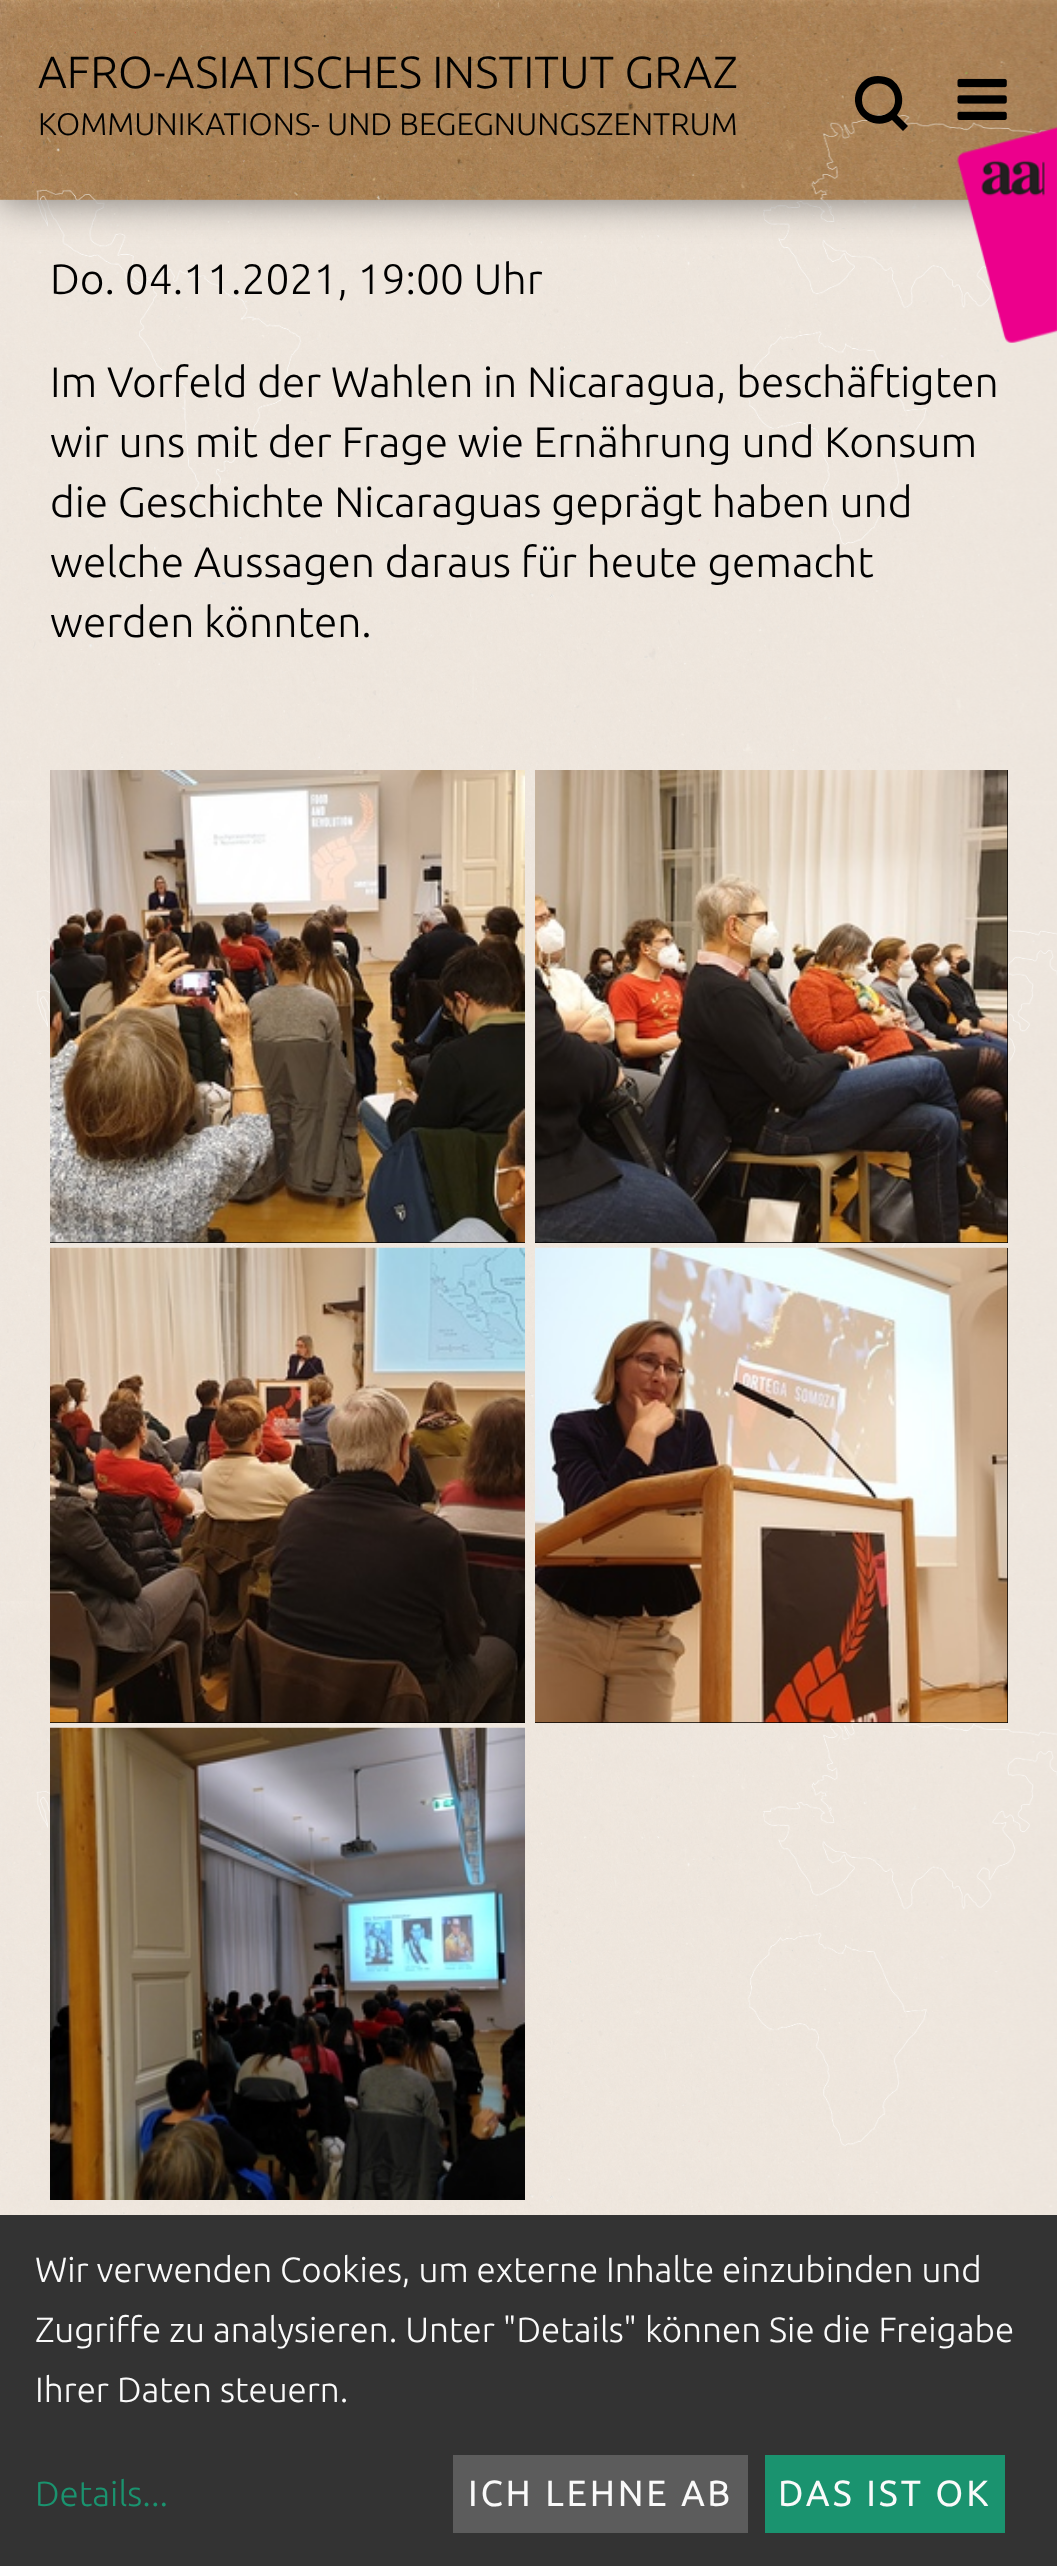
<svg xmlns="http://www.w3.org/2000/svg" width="1057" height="2566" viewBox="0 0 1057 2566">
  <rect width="100%" height="100%" fill="rgb(255,255,255)"/>
  <image x="0" y="199" width="1057" height="2016" href="pic3.png"/>
  <rect x="0" y="0" width="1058" height="200" fill="rgba(0,0,0,0.5)" filter="blur(19px)"/>
  <image x="0" y="0" width="1057" height="200" href="pic1.png"/>
  <text x="38" y="88" font-family="Ubuntu" font-size="45" font-weight="300" fill="rgb(0,0,0)">AFRO-ASIATISCHES INSTITUT GRAZ</text>
  <text x="38" y="135" font-family="Ubuntu" font-size="31.25" font-weight="300" fill="rgb(0,0,0)">KOMMUNIKATIONS- UND BEGEGNUNGSZENTRUM</text>
  <path d="M908 126L897 115C906 104 903 87 891 79C885 76 877 75 871 77C865 79 861 83 858 88C846 110 872 133 892 120L903 131ZM862 100C862 78 895 78 895 100C895 121 862 121 862 100Z" fill="rgb(0,0,0)"/>
  <image x="957" y="78" width="50" height="42" href="pic2.png"/>
  <g font-family="Ubuntu" font-size="42.5" font-weight="300" fill="rgb(0,0,0)">
    <text x="50" y="294">Do. 04.11.2021, 19:00 Uhr</text>
    <text>
      <tspan x="50" y="397">Im Vorfeld der Wahlen in Nicaragua, beschäftigten</tspan>
      <tspan x="50" y="457">wir uns mit der Frage wie Ernährung und Konsum</tspan>
      <tspan x="50" y="517">die Geschichte Nicaraguas geprägt haben und</tspan>
      <tspan x="50" y="577">welche Aussagen daraus für heute gemacht</tspan>
      <tspan x="50" y="637">werden könnten.</tspan>
    </text>
  </g>
  <rect x="50" y="1242" width="475" height="1" fill="rgb(0,0,0)"/>
  <image x="50" y="770" width="475" height="473" href="pic4.png"/>
  <rect x="535" y="770" width="473" height="473" fill="rgb(0,0,0)"/>
  <image x="535" y="770" width="473" height="473" href="pic5.png"/>
  <rect x="50" y="1722" width="475" height="1" fill="rgb(0,0,0)"/>
  <image x="50" y="1247" width="475" height="476" href="pic6.png"/>
  <rect x="535" y="1248" width="473" height="475" fill="rgb(0,0,0)"/>
  <image x="535" y="1247" width="473" height="476" href="pic7.png"/>
  <image x="50" y="1727" width="475" height="473" href="pic8.png"/>
  <image x="957" y="127" width="100" height="216" href="pic9.png"/>
  <rect x="0" y="2215" width="1057" height="351" fill="rgb(51,51,51)"/>
  <g font-family="Ubuntu" font-size="35" font-weight="300" fill="rgb(250,250,250)">
    <text>
      <tspan x="35" y="2282">Wir verwenden Cookies, um externe Inhalte einzubinden und</tspan>
      <tspan x="35" y="2342">Zugriffe zu analysieren. Unter "Details" können Sie die Freigabe</tspan>
      <tspan x="35" y="2402">Ihrer Daten steuern.</tspan>
    </text>
  </g>
  <text x="35" y="2506" font-family="Ubuntu" font-size="35" font-weight="300" fill="rgb(26,147,111)">Details...</text>
  <rect x="453" y="2455" width="295" height="78" fill="rgb(92,92,92)"/>
  <text x="468" y="2506" font-family="Ubuntu" font-size="35" font-weight="bold" letter-spacing="3.75" fill="rgb(250,250,250)">ICH LEHNE AB</text>
  <rect x="765" y="2455" width="240" height="78" fill="rgb(26,147,111)"/>
  <text x="778" y="2506" font-family="Ubuntu" font-size="35" font-weight="bold" letter-spacing="3.75" fill="rgb(250,250,250)">DAS IST OK</text>
</svg>
